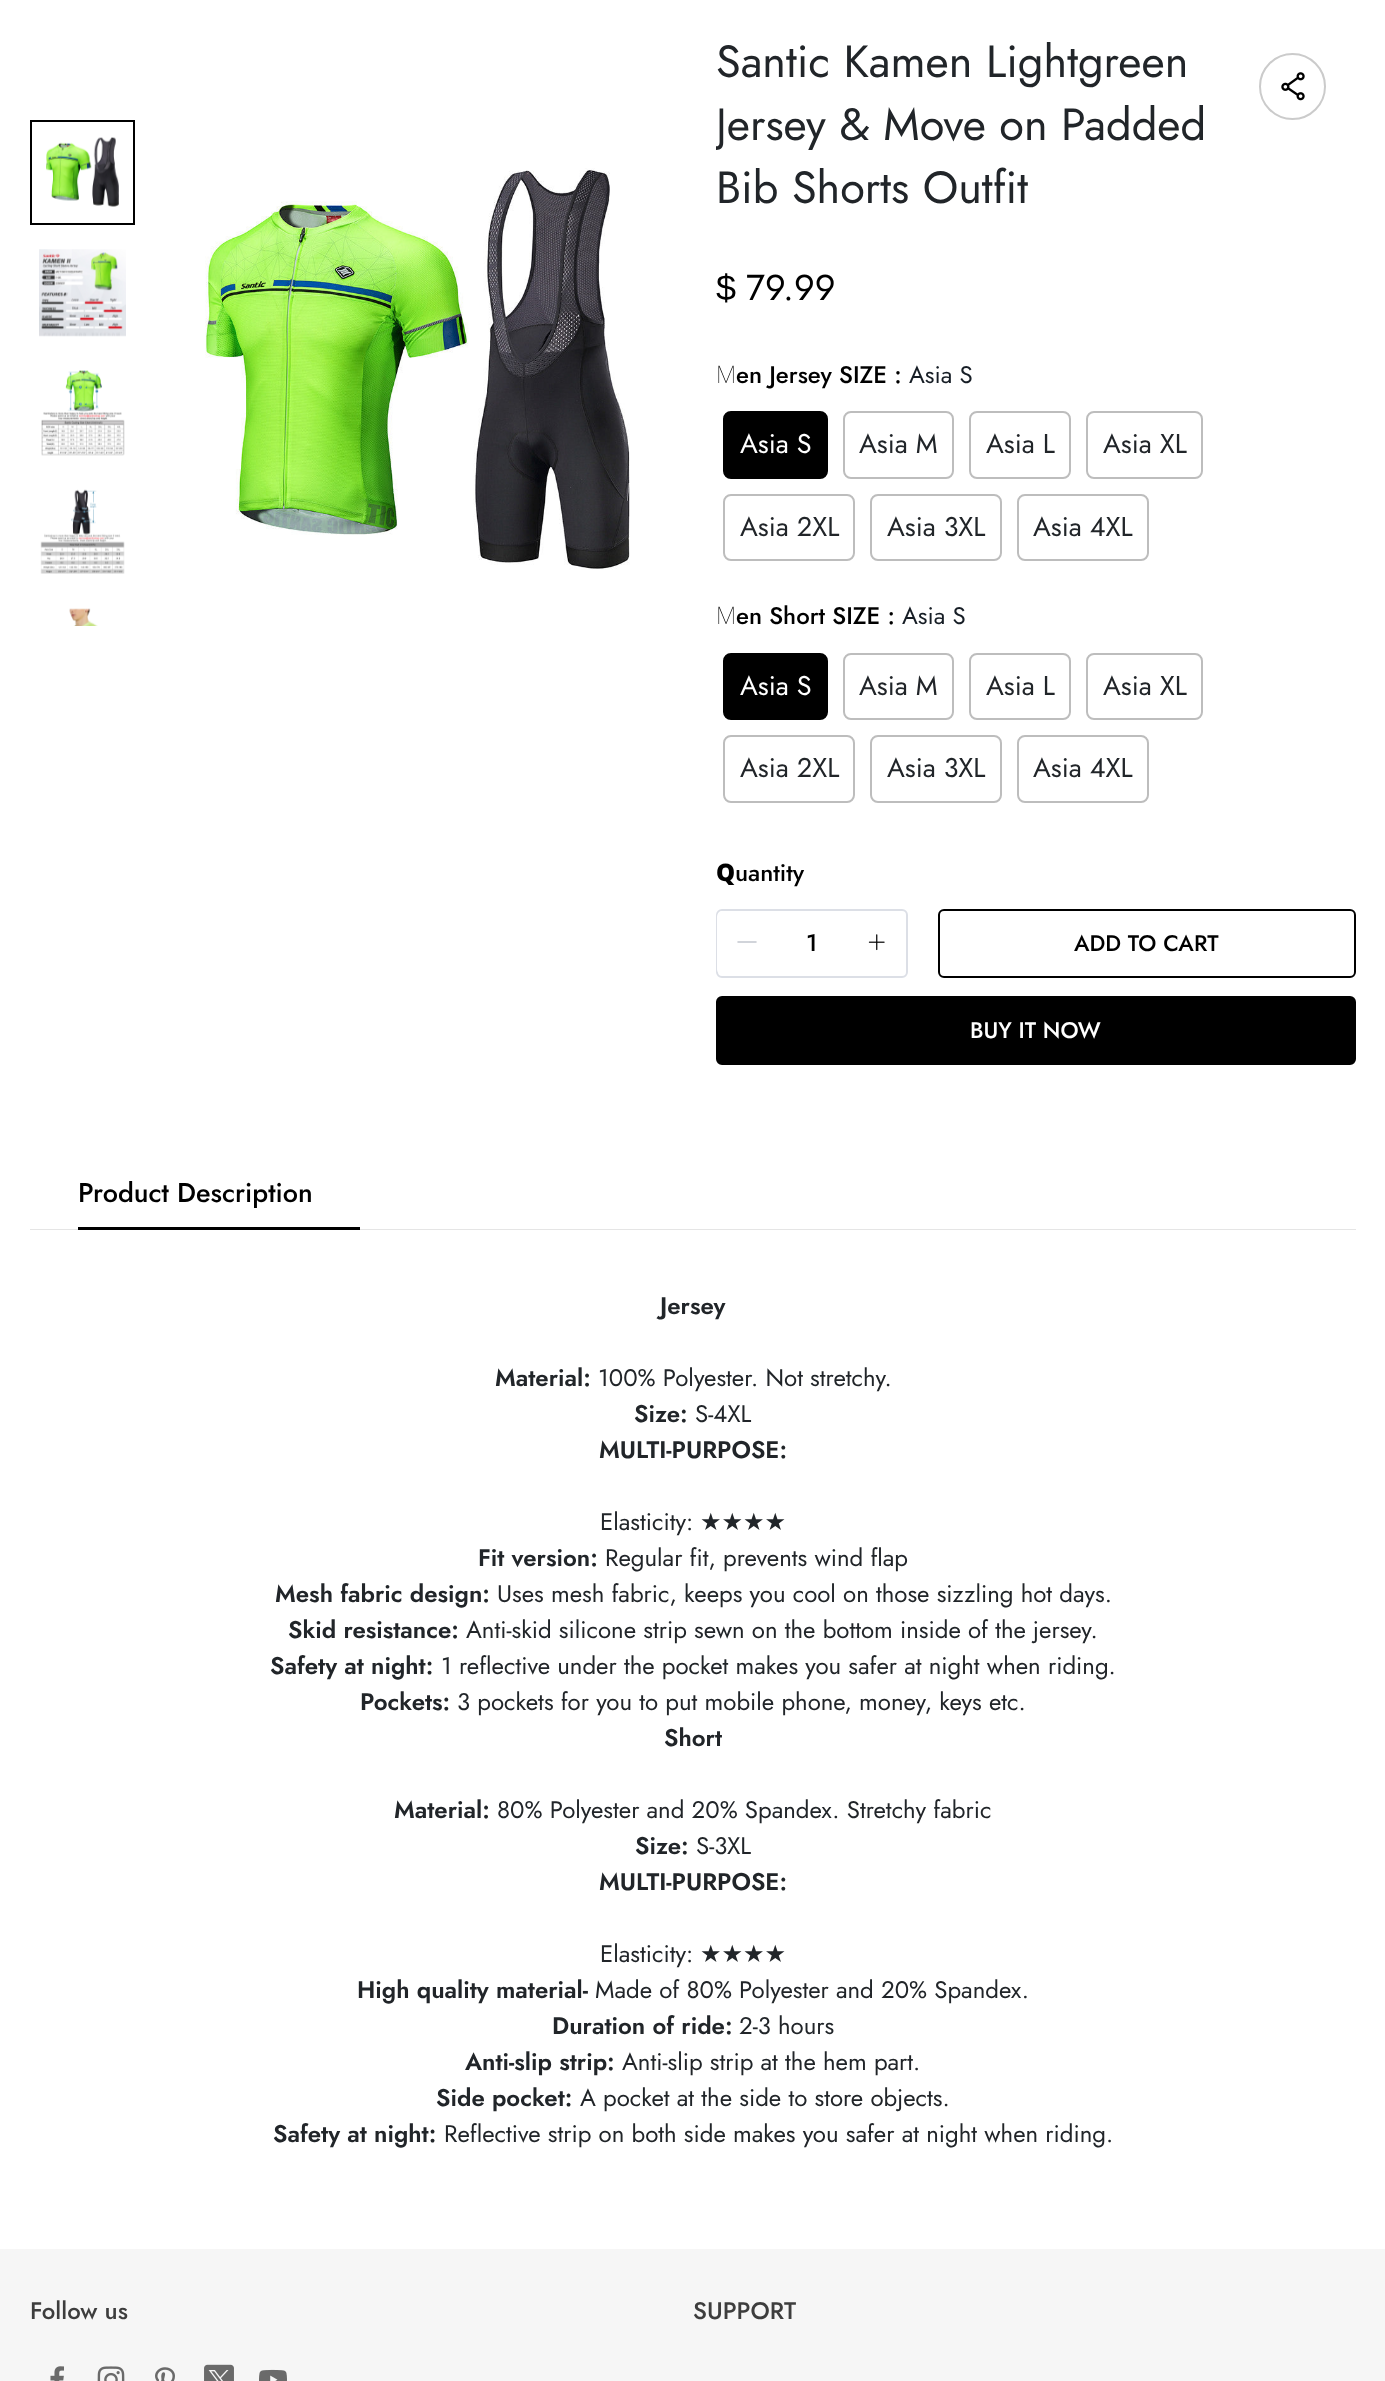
<svg xmlns="http://www.w3.org/2000/svg" width="1385" height="2381" viewBox="0 0 1385 2381">
  <defs>
    <clipPath id="clip1"><rect x="716" y="30" width="640" height="189"/></clipPath>
  </defs>
  <rect width="100%" height="100%" fill="rgb(255,255,255)"/>
  <rect x="31" y="121" width="103" height="103" fill="none" stroke="rgb(0,0,0)" stroke-width="2"/>
  <image x="46" y="137" width="73" height="70" href="pic1.png"/>
  <image x="39" y="249" width="87" height="88" href="pic2.png"/>
  <image x="41" y="370" width="84" height="86" href="pic3.png"/>
  <image x="40" y="489" width="85" height="85" href="pic4.png"/>
  <image x="69" y="608" width="29" height="18" href="pic5.png"/>
  <image x="205" y="168" width="425" height="402" href="pic6.png"/>
  <text x="716" y="77" font-family="Jost" font-size="45" fill="rgb(33,37,41)">Santic Kamen Lightgreen</text>
  <g clip-path="url(#clip1)">
    <text x="716" y="140" font-family="Jost" font-size="45" fill="rgb(33,37,41)">Jersey &amp; Move on Padded</text>
  </g>
  <text x="716" y="203" font-family="Jost" font-size="45" fill="rgb(33,37,41)">Bib Shorts Outfit</text>
  <text x="716" y="300" font-family="Liberation Sans" font-size="36" fill="rgb(0,0,0)">$</text>
  <text x="746" y="300" font-family="Jost" font-size="36" fill="rgb(0,0,0)">79.99</text>
  <circle cx="1292.5" cy="86.5" r="32.5" fill="none" stroke="rgb(203,203,203)" stroke-width="2"/>
  <image x="1281" y="72" width="24" height="29" href="pic7.png"/>
  <text x="716" y="383" font-family="Noto Sans" font-size="24" font-weight="100" fill="rgb(0,0,0)">M</text>
  <text x="736" y="383" font-family="Jost" font-size="24" font-weight="500" fill="rgb(0,0,0)">en Jersey SIZE :</text>
  <text x="909" y="383" font-family="Jost" font-size="24" fill="rgb(22,29,37)">Asia S</text>
  <rect x="724" y="412" width="103" height="66" rx="7" fill="rgb(0,0,0)" stroke="rgb(0,0,0)" stroke-width="2"/>
  <text x="740" y="453" font-family="Jost" font-size="27" fill="rgb(255,255,255)">Asia S</text>
  <rect x="844" y="412" width="109" height="66" rx="7" fill="none" stroke="rgb(189,189,189)" stroke-width="2"/>
  <text x="859" y="453" font-family="Jost" font-size="27" fill="rgb(33,37,41)">Asia M</text>
  <rect x="970" y="412" width="100" height="66" rx="7" fill="none" stroke="rgb(189,189,189)" stroke-width="2"/>
  <text x="986" y="453" font-family="Jost" font-size="27" fill="rgb(33,37,41)">Asia L</text>
  <rect x="1087" y="412" width="115" height="66" rx="7" fill="none" stroke="rgb(189,189,189)" stroke-width="2"/>
  <text x="1103" y="453" font-family="Jost" font-size="27" fill="rgb(33,37,41)">Asia XL</text>
  <rect x="724" y="495" width="130" height="65" rx="7" fill="none" stroke="rgb(189,189,189)" stroke-width="2"/>
  <text x="740" y="536" font-family="Jost" font-size="27" fill="rgb(33,37,41)">Asia 2XL</text>
  <rect x="871" y="495" width="130" height="65" rx="7" fill="none" stroke="rgb(189,189,189)" stroke-width="2"/>
  <text x="887" y="536" font-family="Jost" font-size="27" fill="rgb(33,37,41)">Asia 3XL</text>
  <rect x="1018" y="495" width="130" height="65" rx="7" fill="none" stroke="rgb(189,189,189)" stroke-width="2"/>
  <text x="1033" y="536" font-family="Jost" font-size="27" fill="rgb(33,37,41)">Asia 4XL</text>
  <text x="716" y="624" font-family="Noto Sans" font-size="24" font-weight="100" fill="rgb(0,0,0)">M</text>
  <text x="736" y="624" font-family="Jost" font-size="24" font-weight="500" fill="rgb(0,0,0)">en Short SIZE :</text>
  <text x="902" y="624" font-family="Jost" font-size="24" fill="rgb(22,29,37)">Asia S</text>
  <rect x="724" y="654" width="103" height="65" rx="7" fill="rgb(0,0,0)" stroke="rgb(0,0,0)" stroke-width="2"/>
  <text x="740" y="695" font-family="Jost" font-size="27" fill="rgb(255,255,255)">Asia S</text>
  <rect x="844" y="654" width="109" height="65" rx="7" fill="none" stroke="rgb(189,189,189)" stroke-width="2"/>
  <text x="859" y="695" font-family="Jost" font-size="27" fill="rgb(33,37,41)">Asia M</text>
  <rect x="970" y="654" width="100" height="65" rx="7" fill="none" stroke="rgb(189,189,189)" stroke-width="2"/>
  <text x="986" y="695" font-family="Jost" font-size="27" fill="rgb(33,37,41)">Asia L</text>
  <rect x="1087" y="654" width="115" height="65" rx="7" fill="none" stroke="rgb(189,189,189)" stroke-width="2"/>
  <text x="1103" y="695" font-family="Jost" font-size="27" fill="rgb(33,37,41)">Asia XL</text>
  <rect x="724" y="736" width="130" height="66" rx="7" fill="none" stroke="rgb(189,189,189)" stroke-width="2"/>
  <text x="740" y="777" font-family="Jost" font-size="27" fill="rgb(33,37,41)">Asia 2XL</text>
  <rect x="871" y="736" width="130" height="66" rx="7" fill="none" stroke="rgb(189,189,189)" stroke-width="2"/>
  <text x="887" y="777" font-family="Jost" font-size="27" fill="rgb(33,37,41)">Asia 3XL</text>
  <rect x="1018" y="736" width="130" height="66" rx="7" fill="none" stroke="rgb(189,189,189)" stroke-width="2"/>
  <text x="1033" y="777" font-family="Jost" font-size="27" fill="rgb(33,37,41)">Asia 4XL</text>
  <text x="716" y="881" font-family="Noto Sans" font-size="24" font-weight="900" fill="rgb(0,0,0)">Q</text>
  <text x="735" y="881" font-family="Jost" font-size="24" font-weight="500" fill="rgb(0,0,0)">uantity</text>
  <rect x="717" y="910" width="190" height="67" rx="5" fill="none" stroke="rgb(220,223,230)" stroke-width="2"/>
  <path d="M723 911H777V975H723C719.5 975 717 972.5 717 969V917C717 913.5 719.5 911 723 911Z" fill="rgb(255,255,255)"/>
  <image x="737" y="941" width="20" height="2" href="pic8.png"/>
  <text x="806" y="951" font-family="Jost" font-size="24" font-weight="500" fill="rgb(0,0,0)">1</text>
  <image x="868" y="934" width="17" height="17" href="pic9.png"/>
  <rect x="939" y="910" width="416" height="67" rx="5" fill="none" stroke="rgb(0,0,0)" stroke-width="2"/>
  <text x="1074" y="951" font-family="Jost" font-size="22.5" font-weight="500" fill="rgb(0,0,0)">ADD TO CART</text>
  <rect x="717" y="997" width="638" height="67" rx="5" fill="rgb(0,0,0)" stroke="rgb(0,0,0)" stroke-width="2"/>
  <text x="970" y="1038" font-family="Jost" font-size="22.5" font-weight="500" fill="rgb(255,255,255)">BUY IT NOW</text>
  <text x="78" y="1202" font-family="Jost" font-size="27" font-weight="500" fill="rgb(0,0,0)">Product Description</text>
  <rect x="30" y="1229" width="1326" height="1" fill="rgb(229,229,229)"/>
  <rect x="78" y="1227" width="282" height="3" fill="rgb(0,0,0)"/>
  <g font-family="Jost" font-size="24" font-weight="600" fill="rgb(33,37,41)">
    <text x="660" y="1314">Jersey</text>
    <text x="495" y="1386">Material:</text>
  </g>
  <text x="598" y="1386" font-family="Jost" font-size="24" fill="rgb(33,37,41)">100% Polyester. Not stretchy.</text>
  <text x="634" y="1422" font-family="Jost" font-size="24" font-weight="600" fill="rgb(33,37,41)">Size:</text>
  <text x="695" y="1422" font-family="Jost" font-size="24" fill="rgb(33,37,41)">S-4XL</text>
  <text x="599" y="1458" font-family="Jost" font-size="24" font-weight="600" fill="rgb(33,37,41)">MULTI-PURPOSE:</text>
  <text x="600" y="1530" font-family="Jost" font-size="24" fill="rgb(33,37,41)">Elasticity:</text>
  <text x="700" y="1530" font-family="DejaVu Sans" font-size="24" fill="rgb(33,37,41)">★★★★</text>
  <text x="478" y="1566" font-family="Jost" font-size="24" font-weight="600" fill="rgb(33,37,41)">Fit version:</text>
  <text x="605" y="1566" font-family="Jost" font-size="24" fill="rgb(33,37,41)">Regular fit, prevents wind flap</text>
  <text x="275" y="1602" font-family="Jost" font-size="24" font-weight="600" fill="rgb(33,37,41)">Mesh fabric design:</text>
  <text x="497" y="1602" font-family="Jost" font-size="24" fill="rgb(33,37,41)">Uses mesh fabric, keeps you cool on those sizzling hot days.</text>
  <text x="288" y="1638" font-family="Jost" font-size="24" font-weight="600" fill="rgb(33,37,41)">Skid resistance:</text>
  <text x="466" y="1638" font-family="Jost" font-size="24" fill="rgb(33,37,41)">Anti-skid silicone strip sewn on the bottom inside of the jersey.</text>
  <text x="270" y="1674" font-family="Jost" font-size="24" font-weight="600" fill="rgb(33,37,41)">Safety at night:</text>
  <text x="441" y="1674" font-family="Jost" font-size="24" fill="rgb(33,37,41)">1 reflective under the pocket makes you safer at night when riding.</text>
  <text x="360" y="1710" font-family="Jost" font-size="24" font-weight="600" fill="rgb(33,37,41)">Pockets:</text>
  <text x="457" y="1710" font-family="Jost" font-size="24" fill="rgb(33,37,41)">3 pockets for you to put mobile phone, money, keys etc.</text>
  <g font-family="Jost" font-size="24" font-weight="600" fill="rgb(33,37,41)">
    <text x="664" y="1746">Short</text>
    <text x="394" y="1818">Material:</text>
  </g>
  <text x="497" y="1818" font-family="Jost" font-size="24" fill="rgb(33,37,41)">80% Polyester and 20% Spandex. Stretchy fabric</text>
  <text x="635" y="1854" font-family="Jost" font-size="24" font-weight="600" fill="rgb(33,37,41)">Size:</text>
  <text x="696" y="1854" font-family="Jost" font-size="24" fill="rgb(33,37,41)">S-3XL</text>
  <text x="599" y="1890" font-family="Jost" font-size="24" font-weight="600" fill="rgb(33,37,41)">MULTI-PURPOSE:</text>
  <text x="600" y="1962" font-family="Jost" font-size="24" fill="rgb(33,37,41)">Elasticity:</text>
  <text x="700" y="1962" font-family="DejaVu Sans" font-size="24" fill="rgb(33,37,41)">★★★★</text>
  <text x="357" y="1998" font-family="Jost" font-size="24" font-weight="600" fill="rgb(33,37,41)">High quality material-</text>
  <text x="595" y="1998" font-family="Jost" font-size="24" fill="rgb(33,37,41)">Made of 80% Polyester and 20% Spandex.</text>
  <text x="552" y="2034" font-family="Jost" font-size="24" font-weight="600" fill="rgb(33,37,41)">Duration of ride:</text>
  <text x="739" y="2034" font-family="Jost" font-size="24" fill="rgb(33,37,41)">2-3 hours</text>
  <text x="465" y="2070" font-family="Jost" font-size="24" font-weight="600" fill="rgb(33,37,41)">Anti-slip strip:</text>
  <text x="622" y="2070" font-family="Jost" font-size="24" fill="rgb(33,37,41)">Anti-slip strip at the hem part.</text>
  <text x="436" y="2106" font-family="Jost" font-size="24" font-weight="600" fill="rgb(33,37,41)">Side pocket:</text>
  <text x="580" y="2106" font-family="Jost" font-size="24" fill="rgb(33,37,41)">A pocket at the side to store objects.</text>
  <text x="273" y="2142" font-family="Jost" font-size="24" font-weight="600" fill="rgb(33,37,41)">Safety at night:</text>
  <text x="444" y="2142" font-family="Jost" font-size="24" fill="rgb(33,37,41)">Reflective strip on both side makes you safer at night when riding.</text>
  <rect x="0" y="2249" width="1385" height="132" fill="rgb(246,246,246)"/>
  <text x="30" y="2319" font-family="Jost" font-size="24" font-weight="500" fill="rgb(61,61,61)">Follow us</text>
  <image x="50" y="2366" width="14" height="15" href="pic10.png"/>
  <image x="97" y="2366" width="28" height="15" href="pic11.png"/>
  <image x="155" y="2367" width="20" height="14" href="pic12.png"/>
  <image x="204" y="2364" width="30" height="17" href="pic13.png"/>
  <image x="259" y="2369" width="28" height="12" href="pic14.png"/>
  <text x="693" y="2319" font-family="Jost" font-size="24" font-weight="500" fill="rgb(61,61,61)">SUPPORT</text>
</svg>
